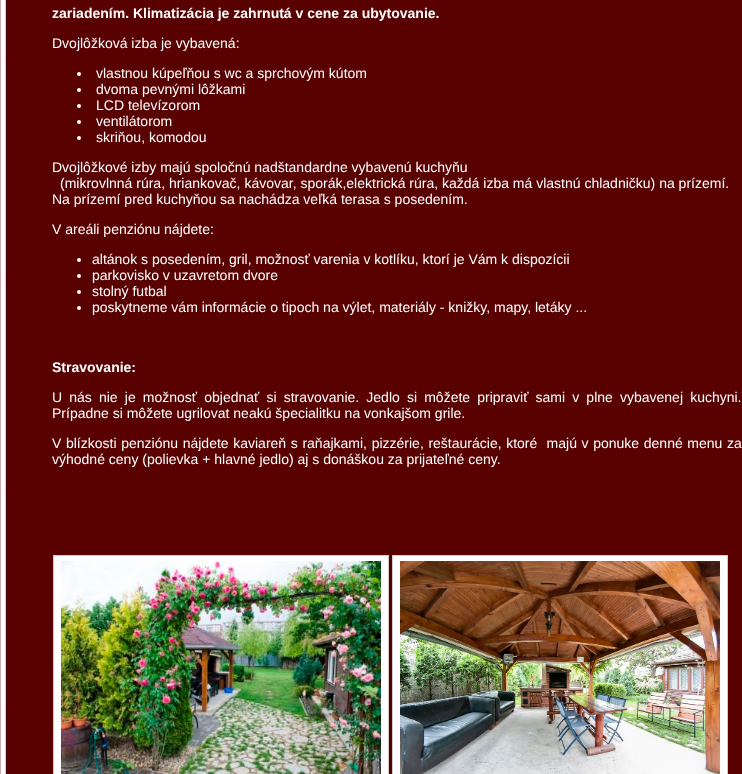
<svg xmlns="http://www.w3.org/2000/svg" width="742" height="774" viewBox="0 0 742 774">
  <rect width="100%" height="100%" fill="rgb(255,255,255)"/>
  <image x="0" y="0" width="742" height="774" href="pic1.png"/>
  <text x="52" y="18" font-family="Liberation Sans" font-size="14" font-weight="bold" fill="rgb(255,255,255)">zariadením. Klimatizácia je zahrnutá v cene za ubytovanie.</text>
  <text x="52" y="48" font-family="Liberation Sans" font-size="14" fill="rgb(255,255,255)">Dvojlôžková izba je vybavená:</text>
  <circle cx="79" cy="74" r="2" fill="rgb(255,255,255)"/>
  <text x="96" y="78" font-family="Liberation Sans" font-size="14" fill="rgb(255,255,255)">vlastnou kúpeľňou s wc a sprchovým kútom</text>
  <circle cx="79" cy="90" r="2" fill="rgb(255,255,255)"/>
  <text x="96" y="94" font-family="Liberation Sans" font-size="14" fill="rgb(255,255,255)">dvoma pevnými lôžkami</text>
  <circle cx="79" cy="106" r="2" fill="rgb(255,255,255)"/>
  <text x="96" y="110" font-family="Liberation Sans" font-size="14" fill="rgb(255,255,255)">LCD televízorom</text>
  <circle cx="79" cy="122" r="2" fill="rgb(255,255,255)"/>
  <text x="96" y="126" font-family="Liberation Sans" font-size="14" fill="rgb(255,255,255)">ventilátorom</text>
  <circle cx="79" cy="138" r="2" fill="rgb(255,255,255)"/>
  <g font-family="Liberation Sans" font-size="14" fill="rgb(255,255,255)">
    <text x="96" y="142">skriňou, komodou</text>
    <text x="52" y="172">Dvojlôžkové izby majú spoločnú nadštandardne vybavenú kuchyňu</text>
    <text x="60" y="188">(mikrovlnná rúra, hriankovač, kávovar, sporák,elektrická rúra, každá izba má vlastnú chladničku) na prízemí.</text>
    <text x="52" y="204">Na prízemí pred kuchyňou sa nachádza veľká terasa s posedením.</text>
    <text x="52" y="234">V areáli penziónu nájdete:</text>
  </g>
  <circle cx="79" cy="260" r="2" fill="rgb(255,255,255)"/>
  <text x="92" y="264" font-family="Liberation Sans" font-size="14" fill="rgb(255,255,255)">altánok s posedením, gril, možnosť varenia v kotlíku, ktorí je Vám k dispozícii</text>
  <circle cx="79" cy="276" r="2" fill="rgb(255,255,255)"/>
  <text x="92" y="280" font-family="Liberation Sans" font-size="14" fill="rgb(255,255,255)">parkovisko v uzavretom dvore</text>
  <circle cx="79" cy="292" r="2" fill="rgb(255,255,255)"/>
  <text x="92" y="296" font-family="Liberation Sans" font-size="14" fill="rgb(255,255,255)">stolný futbal</text>
  <circle cx="79" cy="308" r="2" fill="rgb(255,255,255)"/>
  <text x="92" y="312" font-family="Liberation Sans" font-size="14" fill="rgb(255,255,255)">poskytneme vám informácie o tipoch na výlet, materiály - knižky, mapy, letáky ...</text>
  <text x="52" y="372" font-family="Liberation Sans" font-size="14" font-weight="bold" fill="rgb(255,255,255)">Stravovanie:</text>
  <g font-family="Liberation Sans" font-size="14" fill="rgb(255,255,255)">
    <text>
      <tspan x="52" y="402" word-spacing="3.25">U nás nie je možnosť objednať si stravovanie. Jedlo si môžete pripraviť sami v plne vybavenej kuchyni.</tspan>
      <tspan x="52" y="418">Prípadne si môžete ugrilovat neakú špecialitku na vonkajšom grile.</tspan>
    </text>
    <text xml:space="preserve"><tspan x="52" y="448" word-spacing="0.75">V blízkosti penziónu nájdete kaviareň s raňajkami, pizzérie, reštaurácie, ktoré  majú v ponuke denné menu za</tspan><tspan x="52" y="464">výhodné ceny (polievka + hlavné jedlo) aj s donáškou za prijateľné ceny.</tspan></text>
  </g>
  <rect x="53.5" y="555.5" width="335" height="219" fill="rgb(255,255,255)" stroke="rgb(204,204,204)"/>
  <image x="61" y="561" width="320" height="213" href="pic2.png"/>
  <rect x="392.5" y="555.5" width="335" height="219" fill="rgb(255,255,255)" stroke="rgb(204,204,204)"/>
  <image x="400" y="561" width="320" height="213" href="pic3.png"/>
</svg>
